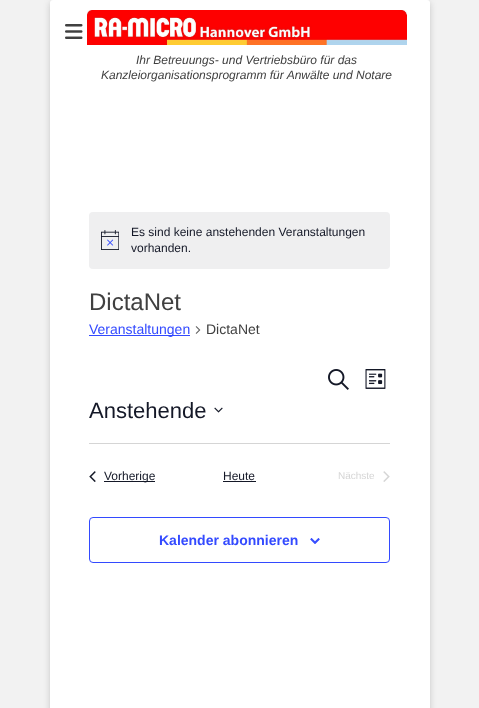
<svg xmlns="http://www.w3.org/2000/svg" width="479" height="708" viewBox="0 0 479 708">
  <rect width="100%" height="100%" fill="rgb(242,242,242)"/>
  <rect x="50" y="2" width="380" height="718" rx="3" fill="rgba(100,100,100,0.3)" filter="blur(3px)"/>
  <rect x="50" y="0" width="380" height="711" rx="3" fill="rgb(255,255,255)"/>
  <image x="65" y="24" width="18" height="15" href="pic1.png"/>
  <image x="87" y="10" width="320" height="35" href="pic2.png"/>
  <g font-family="Liberation Sans" font-size="12" font-style="italic" fill="rgb(64,64,64)">
    <text x="136" y="64">Ihr Betreuungs- und Vertriebsbüro für das</text>
    <text x="101" y="79">Kanzleiorganisationsprogramm für Anwälte und Notare</text>
  </g>
  <rect x="89" y="212" width="301" height="57" rx="4" fill="rgb(239,239,240)"/>
  <image x="101" y="230" width="18" height="20" href="pic3.png"/>
  <g font-family="Liberation Sans" font-size="12" fill="rgb(20,24,39)">
    <text>
      <tspan x="131" y="236">Es sind keine anstehenden Veranstaltungen</tspan>
      <tspan x="131" y="252">vorhanden.</tspan>
    </text>
  </g>
  <text x="89" y="310" font-family="Liberation Sans" font-size="24" fill="rgb(64,64,64)">DictaNet</text>
  <rect x="89" y="335" width="101" height="1" fill="rgb(51,74,255)"/>
  <text x="89" y="334" font-family="Liberation Sans" font-size="14" fill="rgb(51,74,255)">Veranstaltungen</text>
  <image x="195" y="326" width="6" height="8" href="pic4.png"/>
  <text x="206" y="334" font-family="Liberation Sans" font-size="14" fill="rgb(64,64,64)">DictaNet</text>
  <image x="328" y="369" width="21" height="21" href="pic5.png"/>
  <image x="365" y="369" width="21" height="20" href="pic6.png"/>
  <text x="89" y="418" font-family="Liberation Sans" font-size="22" fill="rgb(20,24,39)">Anstehende</text>
  <image x="214" y="407" width="9" height="6" href="pic7.png"/>
  <rect x="89" y="443" width="301" height="1" fill="rgb(213,213,213)"/>
  <image x="89" y="471" width="7" height="11" href="pic8.png"/>
  <rect x="104" y="481" width="51" height="1" fill="rgb(20,24,39)"/>
  <g font-family="Liberation Sans" font-size="12" fill="rgb(20,24,39)">
    <text x="104" y="480">Vorherige</text>
    <text x="223" y="480">Heute</text>
  </g>
  <rect x="223" y="481" width="33" height="1" fill="rgb(20,24,39)"/>
  <text x="338" y="479" font-family="Liberation Sans" font-size="10" fill="rgb(213,213,213)">Nächste</text>
  <image x="383" y="471" width="7" height="11" href="pic9.png"/>
  <rect x="89.5" y="517.5" width="300" height="45" rx="3.5" fill="none" stroke="rgb(51,74,255)"/>
  <text x="159" y="545" font-family="Liberation Sans" font-size="14" font-weight="bold" fill="rgb(51,74,255)">Kalender abonnieren</text>
  <image x="310" y="538" width="10" height="6" href="pic10.png"/>
</svg>
